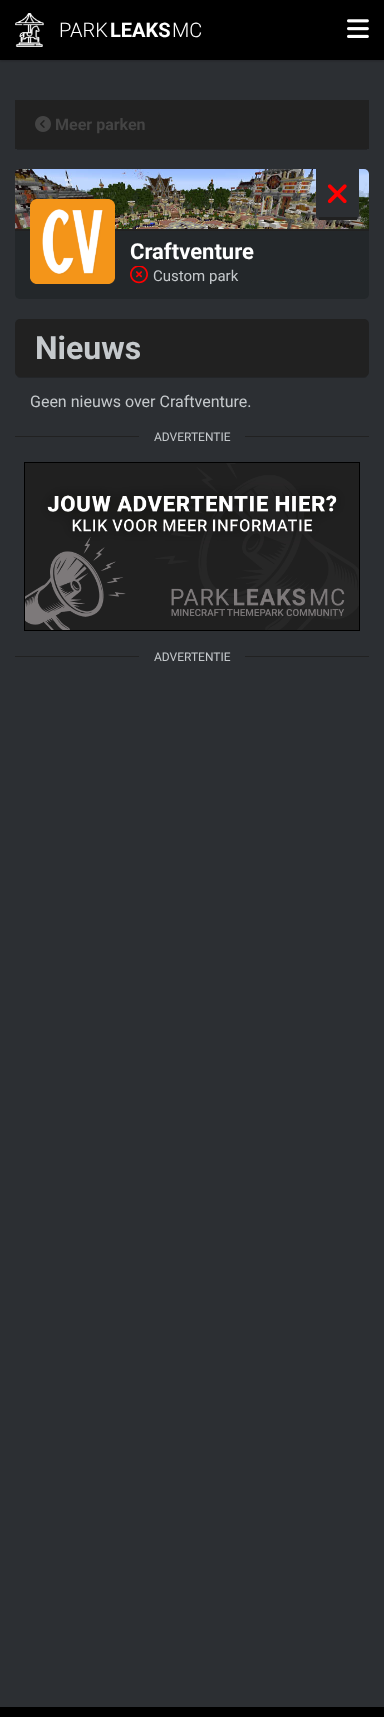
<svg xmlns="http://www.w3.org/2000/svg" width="384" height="1717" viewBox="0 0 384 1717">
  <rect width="100%" height="100%" fill="rgb(44,47,51)"/>
  <rect x="0" y="1" width="384" height="60" fill="rgba(0,0,0,0.2)" filter="blur(1px)"/>
  <rect x="0" y="0" width="384" height="60" fill="rgb(0,0,0)"/>
  <image x="15" y="13" width="29" height="34" href="pic1.png"/>
  <text x="59" y="37" font-family="Roboto" font-size="20" font-weight="300" fill="rgb(255,255,255)">PARK</text>
  <text x="110" y="37" font-family="Roboto" font-size="20" font-weight="bold" fill="rgb(255,255,255)">LEAKS</text>
  <text x="172" y="37" font-family="Roboto" font-size="20" font-weight="300" fill="rgb(255,255,255)">MC</text>
  <image x="347" y="19" width="22" height="19" href="pic2.png"/>
  <rect x="17" y="105" width="350" height="45" fill="rgba(0,0,0,0.2)" filter="blur(0.5px)"/>
  <rect x="15" y="100" width="354" height="49" fill="rgb(33,33,33)"/>
  <image x="35" y="116" width="16" height="16" href="pic3.png"/>
  <text x="55" y="130" font-family="Roboto" font-size="16" font-weight="bold" fill="rgb(68,68,68)">Meer parken</text>
  <rect x="15" y="169" width="354" height="130" rx="5" fill="rgb(35,39,42)"/>
  <path d="M20 169H364C367 169 369 171 369 174V231H15V174C15 171 17 169 20 169Z" fill="rgb(33,33,33)"/>
  <image x="15" y="169" width="354" height="60" href="pic5.png"/>
  <path d="M316 167H359V215C359 218 357 220 354 220H321C318 220 316 218 316 215Z" fill="rgb(44,47,51)"/>
  <rect x="319" y="217" width="38" height="3" fill="rgb(33,33,33)"/>
  <image x="327" y="184" width="20" height="20" href="pic4.png"/>
  <image x="30" y="199" width="85" height="85" href="pic6.png"/>
  <text x="130" y="259" font-family="Roboto" font-size="22" font-weight="bold" fill="rgb(255,255,255)">Craftventure</text>
  <image x="130" y="266" width="18" height="18" href="pic7.png"/>
  <text x="153" y="281" font-family="Roboto" font-size="15" fill="rgb(197,201,204)">Custom park</text>
  <rect x="17" y="324" width="350" height="54" rx="3" fill="rgba(0,0,0,0.2)" filter="blur(0.5px)"/>
  <rect x="15" y="319" width="354" height="58" rx="5" fill="rgb(33,33,33)"/>
  <text x="35" y="359" font-family="Roboto" font-size="32" font-weight="bold" fill="rgb(197,201,204)">Nieuws</text>
  <text x="30" y="407" font-family="Roboto" font-size="16" fill="rgb(197,201,204)">Geen nieuws over Craftventure.</text>
  <rect x="15" y="436" width="354" height="1" fill="rgb(33,33,33)"/>
  <rect x="139" y="436" width="106" height="1" fill="rgb(44,47,51)"/>
  <text x="154" y="441" font-family="Roboto" font-size="12" fill="rgb(197,201,204)">ADVERTENTIE</text>
  <rect x="24.5" y="462.5" width="335" height="168" fill="none" stroke="rgb(0,0,0)"/>
  <image x="25" y="463" width="334" height="167" href="pic8.png"/>
  <rect x="15" y="656" width="354" height="1" fill="rgb(33,33,33)"/>
  <rect x="139" y="656" width="106" height="1" fill="rgb(44,47,51)"/>
  <text x="154" y="661" font-family="Roboto" font-size="12" fill="rgb(197,201,204)">ADVERTENTIE</text>
  <rect x="0" y="1707" width="384" height="10" fill="rgb(0,0,0)"/>
</svg>
